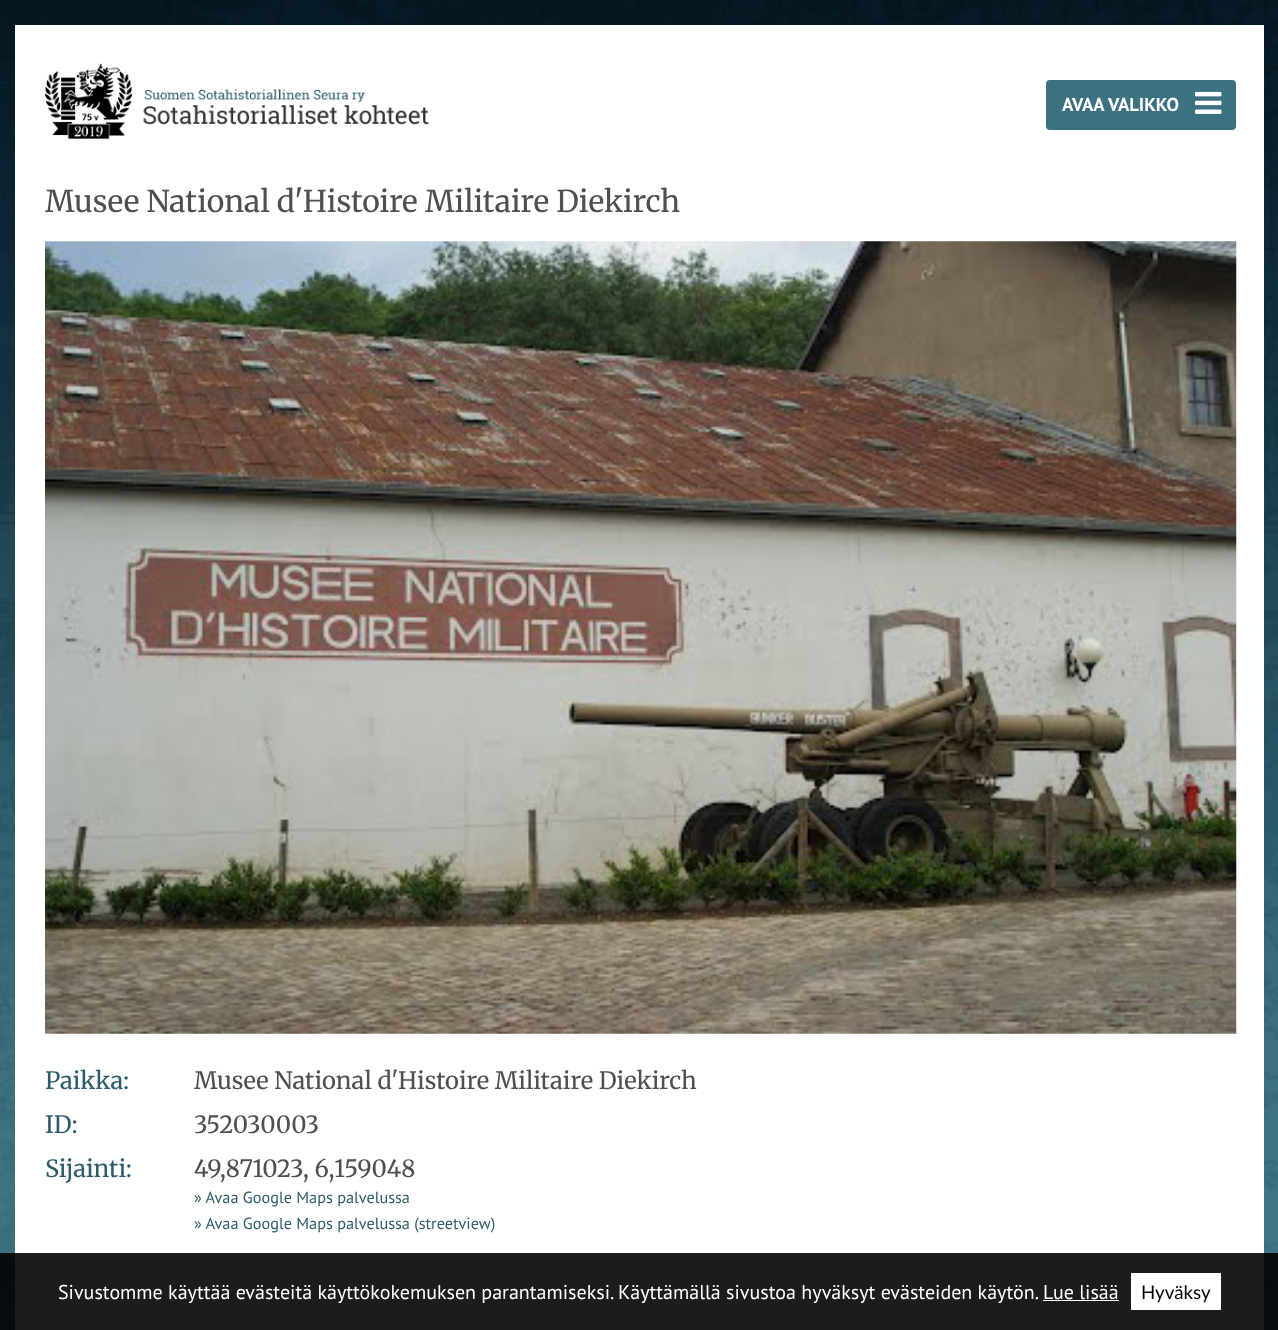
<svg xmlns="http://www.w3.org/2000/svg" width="1278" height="1330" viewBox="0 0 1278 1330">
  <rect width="100%" height="100%" fill="rgb(255,255,255)"/>
  <image x="0" y="0" width="1278" height="1330" href="pic1.png"/>
  <rect x="15" y="25" width="1249" height="1305" fill="rgb(255,255,255)"/>
  <image x="45" y="63" width="384" height="76" href="pic2.png"/>
  <rect x="1046" y="80" width="190" height="50" rx="4" fill="rgb(60,113,130)"/>
  <text x="1062" y="111" font-family="PT Sans" font-size="18.75" font-weight="bold" fill="rgb(255,255,255)">AVAA VALIKKO</text>
  <image x="1195" y="91" width="27" height="23" href="pic3.png"/>
  <text x="45" y="212" font-family="Merriweather" font-size="30" font-weight="300" fill="rgb(79,79,79)">Musee National d'Histoire Militaire Diekirch</text>
  <image x="45" y="241" width="1192" height="793" href="pic4.png"/>
  <text x="45" y="1089" font-family="Merriweather" font-size="23.75" font-weight="300" fill="rgb(44,92,106)">Paikka:</text>
  <text x="194" y="1089" font-family="Merriweather" font-size="23.75" font-weight="300" fill="rgb(79,79,79)">Musee National d'Histoire Militaire Diekirch</text>
  <text x="45" y="1133" font-family="Merriweather" font-size="23.75" font-weight="300" fill="rgb(44,92,106)">ID:</text>
  <text x="194" y="1133" font-family="Merriweather" font-size="23.75" font-weight="300" fill="rgb(79,79,79)">352030003</text>
  <text x="45" y="1177" font-family="Merriweather" font-size="23.75" font-weight="300" fill="rgb(44,92,106)">Sijainti:</text>
  <text x="194" y="1177" font-family="Merriweather" font-size="23.75" font-weight="300" fill="rgb(79,79,79)">49,871023, 6,159048</text>
  <g font-family="PT Sans" font-size="16.25" fill="rgb(44,92,106)">
    <text>
      <tspan x="194" y="1203">» Avaa Google Maps palvelussa</tspan>
      <tspan x="194" y="1229">» Avaa Google Maps palvelussa (streetview)</tspan>
    </text>
  </g>
  <rect x="0" y="1253" width="1278" height="77" fill="rgba(0,0,0,0.89)"/>
  <g font-family="PT Sans" font-size="20" fill="rgb(255,255,255)">
    <text x="58" y="1299">Sivustomme käyttää evästeitä käyttökokemuksen parantamiseksi. Käyttämällä sivustoa hyväksyt evästeiden käytön.</text>
    <text x="1043" y="1299">Lue lisää</text>
  </g>
  <rect x="1043" y="1300" width="76" height="1" fill="rgb(255,255,255)"/>
  <rect x="1131" y="1273" width="90" height="37" fill="rgb(255,255,255)"/>
  <text x="1141" y="1299" font-family="Lato" font-size="18.75" fill="rgb(2,2,2)">Hyväksy</text>
</svg>
